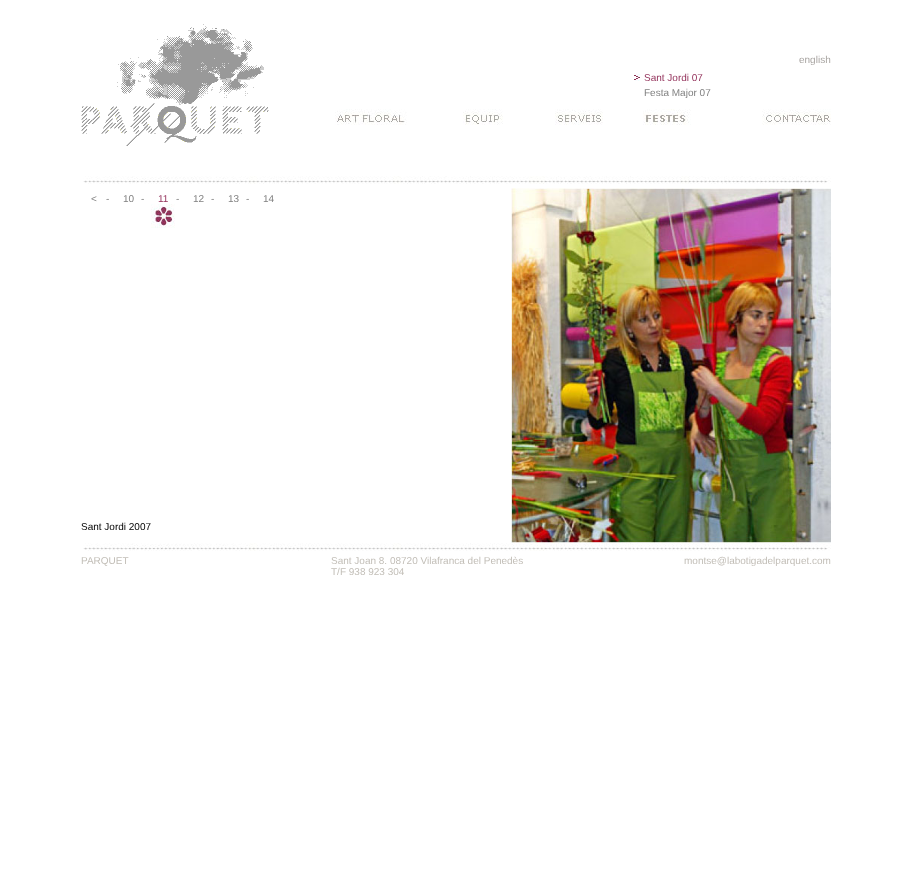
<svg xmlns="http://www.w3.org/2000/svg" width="912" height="883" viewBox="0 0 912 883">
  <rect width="100%" height="100%" fill="rgb(255,255,255)"/>
  <image x="81" y="24" width="188" height="122" href="pic1.png"/>
  <text x="799" y="63" font-family="Liberation Sans" font-size="10" fill="rgb(168,164,161)">english</text>
  <image x="762" y="109" width="69" height="16" href="pic2.png"/>
  <image x="634" y="73" width="6" height="8" href="pic3.png"/>
  <text x="644" y="81" font-family="Liberation Sans" font-size="10" fill="rgb(148,51,92)">Sant Jordi 07</text>
  <text x="644" y="96" font-family="Liberation Sans" font-size="10" fill="rgb(128,128,128)">Festa Major 07</text>
  <image x="643" y="109" width="48" height="16" href="pic4.png"/>
  <image x="335" y="109" width="72" height="16" href="pic5.png"/>
  <image x="463" y="109" width="40" height="16" href="pic6.png"/>
  <image x="555" y="109" width="48" height="16" href="pic7.png"/>
  <image x="83" y="176" width="748" height="8" href="pic8.png"/>
  <g font-family="Liberation Sans" font-size="10" fill="rgb(128,128,128)">
    <text x="91" y="202">&lt;</text>
    <text x="106" y="202">-</text>
    <text x="123" y="202">10</text>
    <text x="141" y="202">-</text>
  </g>
  <text x="158" y="202" font-family="Liberation Sans" font-size="10" fill="rgb(148,51,92)">11</text>
  <g font-family="Liberation Sans" font-size="10" fill="rgb(128,128,128)">
    <text x="176" y="202">-</text>
    <text x="193" y="202">12</text>
    <text x="211" y="202">-</text>
    <text x="228" y="202">13</text>
    <text x="246" y="202">-</text>
    <text x="263" y="202">14</text>
  </g>
  <image x="151" y="204" width="24" height="24" href="pic9.png"/>
  <image x="511" y="188" width="320" height="355" href="pic10.png"/>
  <text x="81" y="530" font-family="Liberation Sans" font-size="10" fill="rgb(0,0,0)">Sant Jordi 2007</text>
  <image x="83" y="543" width="748" height="8" href="pic8.png"/>
  <g font-family="Liberation Sans" font-size="10" fill="rgb(194,190,183)">
    <text x="81" y="564">PARQUET</text>
    <text>
      <tspan x="331" y="564">Sant Joan 8. 08720 Vilafranca del Penedès</tspan>
      <tspan x="331" y="575">T/F 938 923 304</tspan>
    </text>
    <text x="684" y="564">montse@labotigadelparquet.com</text>
  </g>
</svg>
